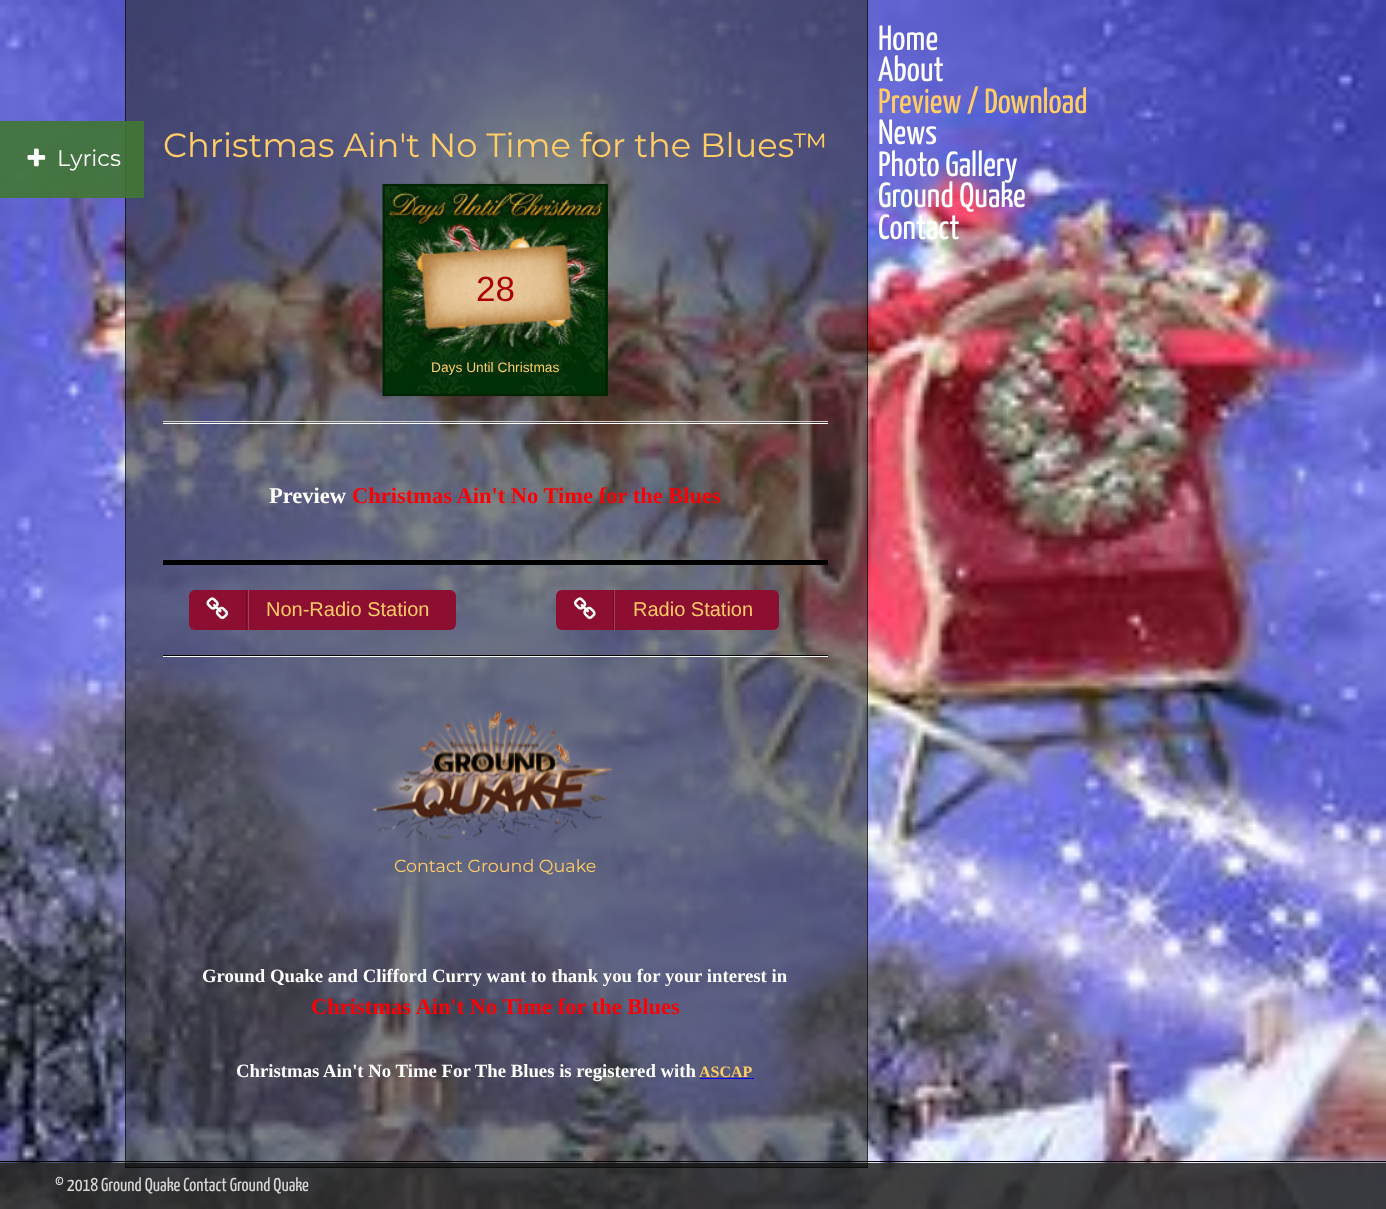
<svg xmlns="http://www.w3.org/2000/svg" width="1386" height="1209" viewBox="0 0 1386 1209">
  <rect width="100%" height="100%" fill="rgb(255,255,255)"/>
  <image x="0" y="0" width="1386" height="1209" href="pic1.png"/>
  <rect x="0" y="1163" width="1386" height="46" fill="rgba(255,255,255,0.6)"/>
  <rect x="125" y="0" width="743" height="1168" fill="rgba(50,51,51,0.6)"/>
  <rect x="125.5" y="-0.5" width="742" height="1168" fill="none" stroke="rgba(0,0,0,0.6)"/>
  <rect x="0" y="121" width="144" height="77" fill="rgba(65,119,50,0.9)"/>
  <image x="27" y="148" width="19" height="19" href="pic2.png"/>
  <text x="57" y="166" font-family="Montserrat" font-size="22.5" fill="rgb(255,255,255)">Lyrics</text>
  <text x="163" y="157" font-family="Montserrat" font-size="33.75" fill="rgb(255,204,102)">Christmas Ain't No Time for the Blues™</text>
  <rect x="607" y="184" width="1" height="212" fill="rgb(2,48,6)"/>
  <image x="382" y="183" width="226" height="214" href="pic3.png"/>
  <text x="476" y="301" font-family="Liberation Sans" font-size="35" fill="rgb(170,0,0)">28</text>
  <text x="431" y="372" font-family="Liberation Sans" font-size="13.75" fill="rgb(255,204,102)">Days Until Christmas</text>
  <rect x="163" y="421" width="665" height="1" fill="rgb(204,204,204)"/>
  <rect x="163" y="423" width="665" height="1" fill="rgb(255,255,255)"/>
  <text x="269" y="503" font-family="Liberation Serif" font-size="22.5" font-weight="bold" fill="rgb(255,255,255)">Preview</text>
  <text x="352" y="503" font-family="Liberation Serif" font-size="22.5" font-weight="bold" fill="rgb(251,1,6)">Christmas Ain't No Time for the Blues</text>
  <rect x="163" y="560" width="665" height="5" fill="rgb(0,0,0)"/>
  <rect x="189" y="590" width="267" height="40" rx="6" fill="rgb(140,14,48)"/>
  <rect x="246" y="590" width="1" height="40" fill="rgb(112,11,38)"/>
  <image x="206" y="597" width="23" height="22" href="pic4.png"/>
  <rect x="248" y="590" width="1" height="40" fill="rgb(163,62,89)"/>
  <text x="266" y="616" font-family="Liberation Sans" font-size="20" fill="rgb(255,204,102)">Non-Radio Station</text>
  <rect x="556" y="590" width="223" height="40" rx="6" fill="rgb(140,14,48)"/>
  <rect x="613" y="590" width="1" height="40" fill="rgb(112,11,38)"/>
  <image x="574" y="597" width="22" height="22" href="pic5.png"/>
  <rect x="614" y="590" width="1" height="40" fill="rgb(163,62,89)"/>
  <text x="633" y="616" font-family="Liberation Sans" font-size="20" fill="rgb(255,204,102)">Radio Station</text>
  <rect x="163" y="655" width="665" height="1" fill="rgb(0,0,0)"/>
  <rect x="163" y="656" width="665" height="1" fill="rgb(255,255,255)"/>
  <image x="372" y="710" width="241" height="131" href="pic6.png"/>
  <text x="394" y="872" font-family="Montserrat" font-size="17.5" fill="rgb(255,204,102)">Contact Ground Quake</text>
  <text x="202" y="982" font-family="Liberation Serif" font-size="18.75" font-weight="bold" fill="rgb(255,255,255)">Ground Quake and Clifford Curry want to thank you for your interest in</text>
  <text x="311" y="1014" font-family="Liberation Serif" font-size="22.5" font-weight="bold" fill="rgb(251,1,6)">Christmas Ain't No Time for the Blues</text>
  <text x="236" y="1077" font-family="Liberation Serif" font-size="18.75" font-weight="bold" fill="rgb(255,255,255)">Christmas Ain't No Time For The Blues is registered with</text>
  <text x="699" y="1077" font-family="Liberation Serif" font-size="16" font-weight="bold" fill="rgb(255,204,102)">ASCAP</text>
  <rect x="700" y="1078" width="54" height="1" fill="rgb(0,0,233)"/>
  <g font-family="Yanone Kaffeesatz" font-size="35" fill="rgb(255,255,255)">
    <text>
      <tspan x="878" y="50">Home</tspan>
      <tspan x="878" y="81">About</tspan>
    </text>
  </g>
  <text x="878" y="113" font-family="Yanone Kaffeesatz" font-size="35" fill="rgb(255,204,102)">Preview / Download</text>
  <g font-family="Yanone Kaffeesatz" font-size="35" fill="rgb(255,255,255)">
    <text>
      <tspan x="878" y="144">News</tspan>
      <tspan x="878" y="176">Photo Gallery</tspan>
      <tspan x="878" y="207">Ground Quake</tspan>
      <tspan x="878" y="239">Contact</tspan>
    </text>
  </g>
  <rect x="0" y="1161" width="1386" height="1" fill="rgb(0,0,0)"/>
  <rect x="0" y="1163" width="1386" height="46" fill="rgba(0,0,0,0.75)"/>
  <text x="55" y="1191" font-family="Yanone Kaffeesatz" font-size="18.75" fill="rgb(214,214,214)">© 2018 Ground Quake Contact Ground Quake</text>
</svg>
